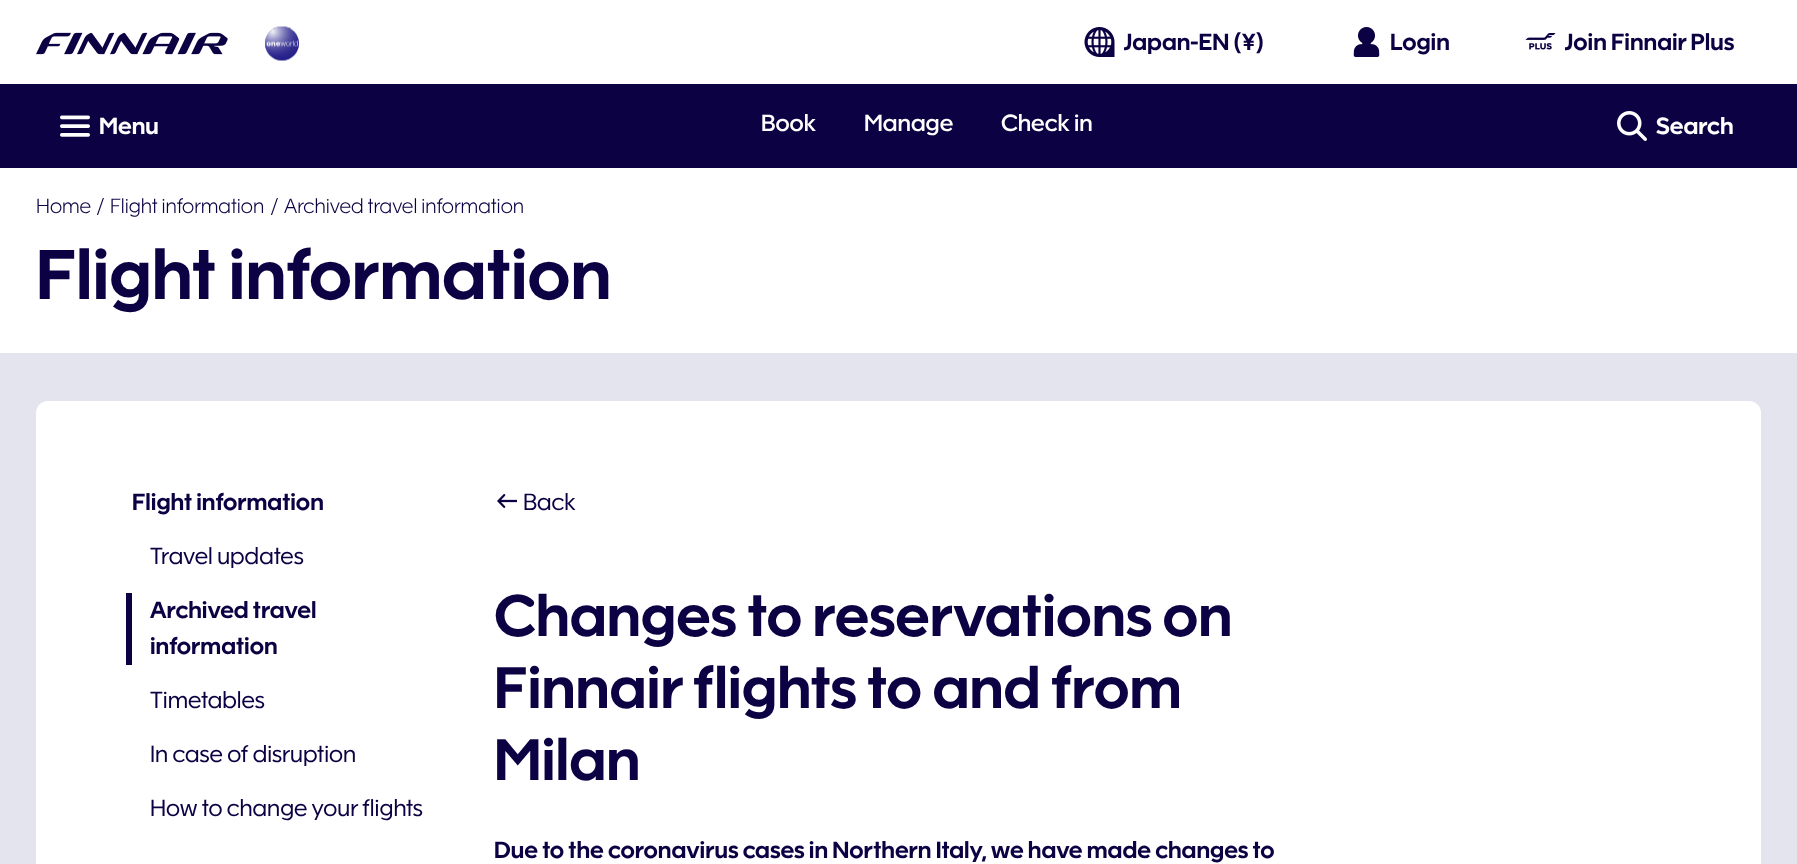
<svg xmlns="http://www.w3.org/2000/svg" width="1797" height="864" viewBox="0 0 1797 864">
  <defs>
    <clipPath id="clip1"><rect x="1124" y="24" width="141" height="36"/></clipPath>
    <clipPath id="clip2"><rect x="1565" y="24" width="169" height="36"/></clipPath>
  </defs>
  <rect width="100%" height="100%" fill="rgb(255,255,255)"/>
  <image x="36" y="32" width="192" height="23" href="pic1.png"/>
  <image x="265" y="26" width="34" height="35" href="pic2.png"/>
  <image x="1084" y="27" width="31" height="30" href="pic3.png"/>
  <g clip-path="url(#clip1)">
    <text x="1123" y="50" font-family="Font" font-size="24" font-weight="bold" fill="rgb(12,2,67)">Japan-EN (¥)</text>
  </g>
  <image x="1353" y="27" width="27" height="30" href="pic4.png"/>
  <text x="1390" y="50" font-family="Font" font-size="24" font-weight="bold" fill="rgb(12,2,67)">Login</text>
  <image x="1525" y="33" width="31" height="17" href="pic5.png"/>
  <g clip-path="url(#clip2)">
    <text x="1564" y="50" font-family="Font" font-size="24" font-weight="bold" fill="rgb(12,2,67)">Join Finnair Plus</text>
  </g>
  <rect x="0" y="84" width="1797" height="84" fill="rgb(12,2,67)"/>
  <image x="60" y="115" width="30" height="22" href="pic6.png"/>
  <text x="99" y="134" font-family="Font" font-size="24" font-weight="bold" fill="rgb(255,255,255)">Menu</text>
  <g font-family="Font" font-size="24" font-weight="500" fill="rgb(255,255,255)">
    <text x="761" y="131">Book</text>
    <text x="864" y="131">Manage</text>
    <text x="1001" y="131">Check in</text>
  </g>
  <image x="1617" y="111" width="30" height="30" href="pic7.png"/>
  <text x="1656" y="134" font-family="Font" font-size="24" font-weight="bold" fill="rgb(255,255,255)">Search</text>
  <g font-family="Font" font-size="21" font-weight="300" fill="rgb(12,2,67)">
    <text x="36" y="213">Home</text>
    <text x="97" y="213">/</text>
    <text x="110" y="213">Flight information</text>
    <text x="271" y="213">/</text>
    <text x="284" y="213">Archived travel information</text>
  </g>
  <text x="36" y="299" font-family="Font" font-size="72" font-weight="bold" fill="rgb(12,2,67)">Flight information</text>
  <rect x="0" y="353" width="1797" height="511" fill="rgb(228,228,238)"/>
  <rect x="36" y="401" width="1725" height="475" rx="12" fill="rgb(255,255,255)"/>
  <text x="132" y="510" font-family="Font" font-size="24" font-weight="bold" fill="rgb(12,2,67)">Flight information</text>
  <text x="150" y="564" font-family="Font" font-size="24" fill="rgb(12,2,67)">Travel updates</text>
  <rect x="126" y="593" width="6" height="72" fill="rgb(12,2,67)"/>
  <g font-family="Font" font-size="24" font-weight="bold" fill="rgb(12,2,67)">
    <text>
      <tspan x="150" y="618">Archived travel</tspan>
      <tspan x="150" y="654">information</tspan>
    </text>
  </g>
  <g font-family="Font" font-size="24" fill="rgb(12,2,67)">
    <text x="150" y="708">Timetables</text>
    <text x="150" y="762">In case of disruption</text>
    <text x="150" y="816">How to change your flights</text>
  </g>
  <image x="497" y="494" width="20" height="14" href="pic8.png"/>
  <text x="523" y="510" font-family="Font" font-size="24" fill="rgb(12,2,67)">Back</text>
  <g font-family="Font" font-size="60" font-weight="bold" fill="rgb(12,2,67)">
    <text>
      <tspan x="494" y="636">Changes to reservations on</tspan>
      <tspan x="494" y="708">Finnair flights to and from</tspan>
      <tspan x="494" y="780">Milan</tspan>
    </text>
  </g>
  <text x="494" y="858" font-family="Font" font-size="24" font-weight="bold" fill="rgb(12,2,67)">Due to the coronavirus cases in Northern Italy, we have made changes to</text>
</svg>
